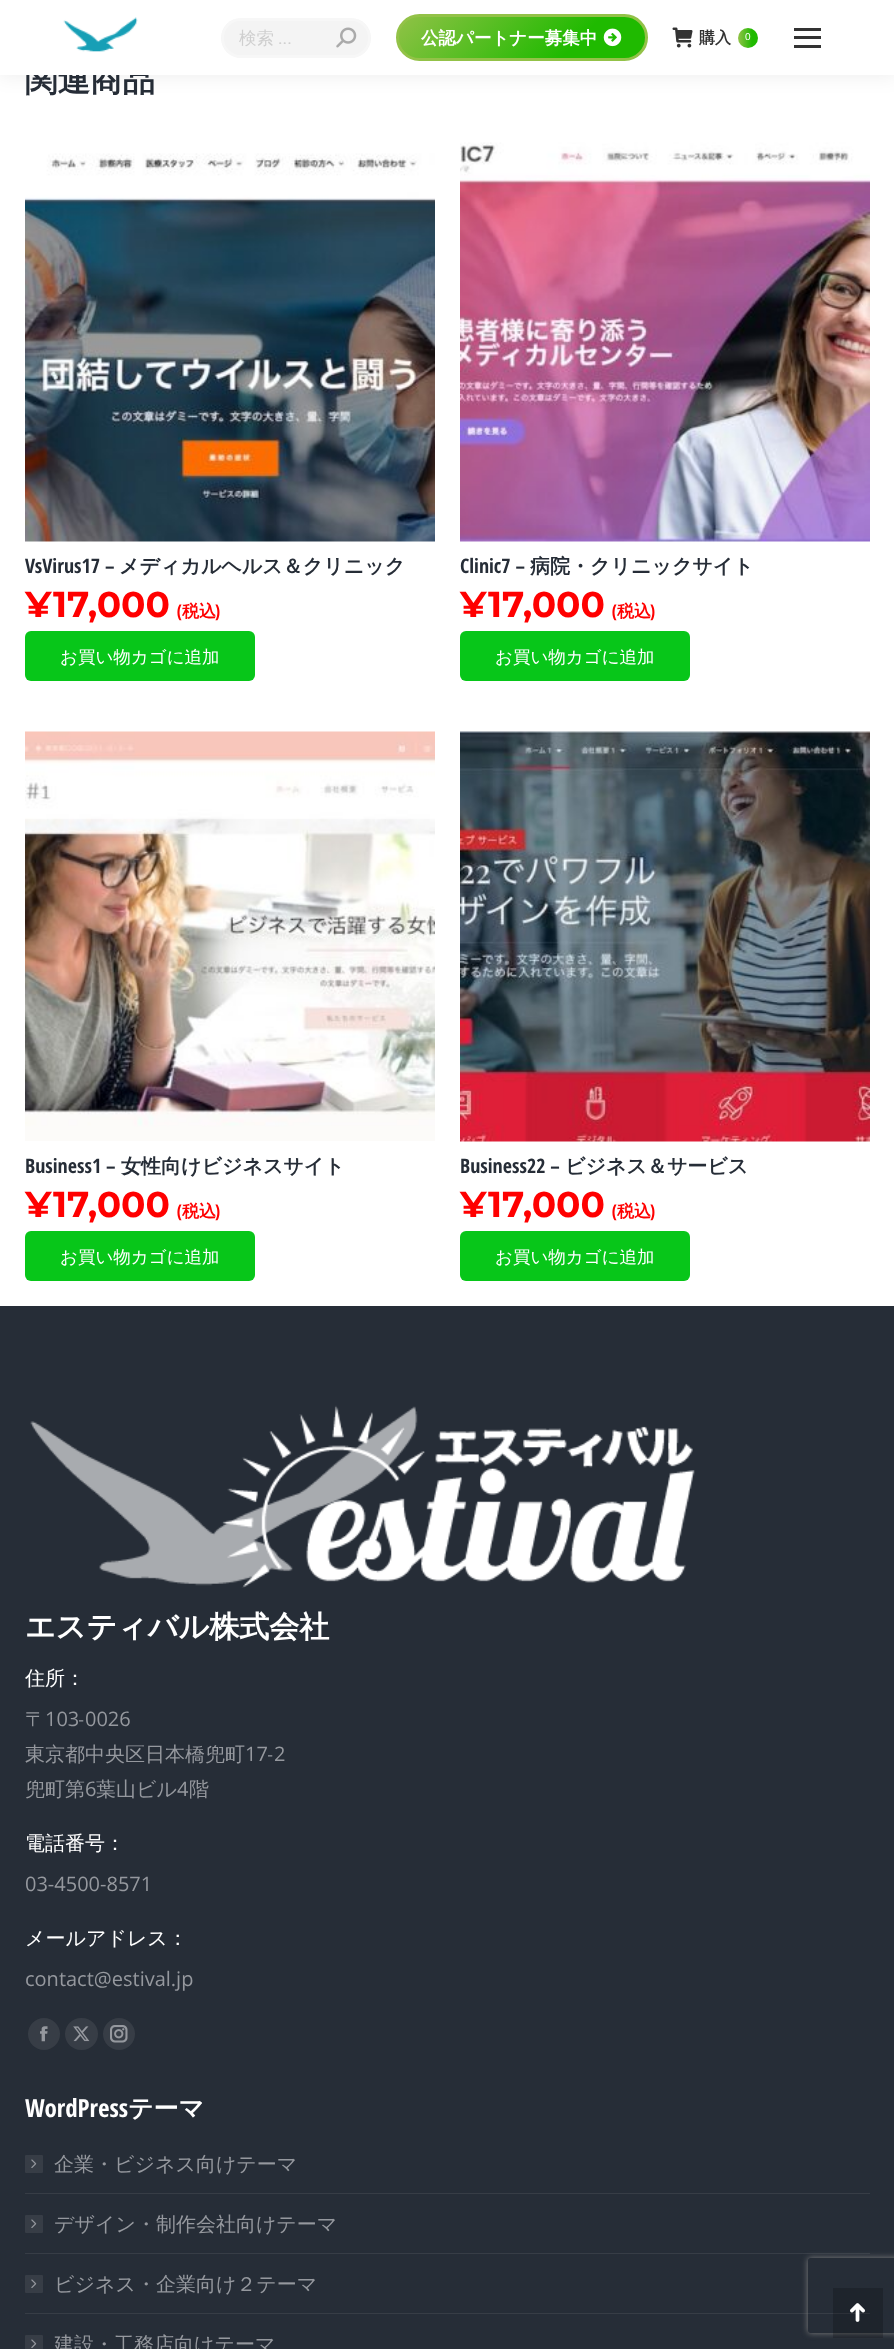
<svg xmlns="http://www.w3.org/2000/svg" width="894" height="2349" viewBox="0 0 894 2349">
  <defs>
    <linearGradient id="g1" gradientUnits="userSpaceOnUse" x1="447" y1="-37" x2="597" y2="112"><stop offset="0" stop-color="rgb(147,194,72)"/><stop offset="0.7" stop-color="rgb(31,186,0)"/></linearGradient>
    <linearGradient id="g2" gradientUnits="userSpaceOnUse" x1="738" y1="38" x2="758" y2="38"><stop offset="0" stop-color="rgb(147,194,72)"/><stop offset="0.7" stop-color="rgb(31,186,0)"/></linearGradient>
    <clipPath id="clip1"><path d="M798 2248H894V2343H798ZM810.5 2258H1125.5C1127 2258 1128 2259 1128 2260.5V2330.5C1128 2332 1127 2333 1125.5 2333H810.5C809 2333 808 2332 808 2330.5V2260.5C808 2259 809 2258 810.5 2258Z" clip-rule="evenodd"/></clipPath>
  </defs>
  <rect width="100%" height="100%" fill="rgb(255,255,255)"/>
  <rect x="-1" y="-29" width="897" height="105" fill="rgba(0,0,0,0.07)" filter="blur(9.5px)"/>
  <text x="25" y="91" font-family="WenQuanYi Zen Hei" font-size="32.5" font-weight="bold" fill="rgb(38,45,55)">関連商品</text>
  <rect x="0" y="0" width="894" height="75" fill="rgb(255,255,255)"/>
  <image x="63" y="17" width="75" height="35" href="pic1.png"/>
  <rect x="221" y="18" width="150" height="40" rx="20" fill="rgb(244,244,244)"/>
  <rect x="222.5" y="19.5" width="147" height="37" rx="18.5" fill="none" stroke="rgba(255,255,255,0.25)" stroke-width="3"/>
  <text x="239" y="44" font-family="WenQuanYi Zen Hei" font-size="17.5" font-weight="500" fill="rgb(207,207,207)">検索</text>
  <text x="278" y="44" font-family="Roboto" font-size="17.5" fill="rgb(207,207,207)">...</text>
  <image x="336" y="27" width="21" height="21" href="pic2.png"/>
  <rect x="397.5" y="15.5" width="249" height="44" rx="22" fill="url(#g1)" stroke="rgb(147,194,72)" stroke-width="3"/>
  <text x="421" y="44" font-family="WenQuanYi Zen Hei" font-size="17.5" font-weight="bold" fill="rgb(255,255,255)">公認パートナー募集中</text>
  <image x="603" y="28" width="19" height="19" href="pic3.png"/>
  <image x="672" y="27" width="21" height="21" href="pic4.png"/>
  <text x="699" y="43" font-family="WenQuanYi Zen Hei" font-size="16" font-weight="bold" fill="rgb(51,51,51)">購入</text>
  <circle cx="748" cy="38" r="10" fill="url(#g2)"/>
  <text x="745" y="40" font-family="Liberation Sans" font-size="10" fill="rgb(255,255,255)">0</text>
  <rect x="794" y="28" width="27" height="3" fill="rgb(51,51,51)"/>
  <rect x="794" y="36" width="27" height="3" fill="rgb(51,51,51)"/>
  <rect x="794" y="45" width="27" height="3" fill="rgb(51,51,51)"/>
  <image x="25" y="153" width="410" height="389" href="pic5.png"/>
  <text x="25" y="573" font-family="Open Sans Condensed" font-size="20" font-weight="bold" fill="rgb(38,45,55)">VsVirus17 –</text>
  <text x="119" y="573" font-family="WenQuanYi Zen Hei" font-size="20" font-weight="bold" fill="rgb(38,45,55)">メディカルヘルス＆クリニック</text>
  <g font-family="Montserrat" font-size="36" font-weight="bold" fill="rgb(255,0,0)">
    <text x="25" y="617">¥</text>
    <text x="53" y="617">17,000</text>
  </g>
  <text x="176" y="617" font-family="Montserrat" font-size="17" font-weight="600" fill="rgb(255,0,0)">(</text>
  <text x="182" y="617" font-family="WenQuanYi Zen Hei" font-size="17" font-weight="bold" fill="rgb(255,0,0)">税込</text>
  <text x="215" y="617" font-family="Montserrat" font-size="17" font-weight="600" fill="rgb(255,0,0)">)</text>
  <rect x="25" y="631" width="230" height="50" rx="6" fill="rgb(7,198,25)"/>
  <text x="60" y="663" font-family="WenQuanYi Zen Hei" font-size="17.5" font-weight="500" fill="rgb(255,255,255)">お買い物カゴに追加</text>
  <image x="460" y="142" width="410" height="400" href="pic6.png"/>
  <text x="460" y="573" font-family="Open Sans Condensed" font-size="20" font-weight="bold" fill="rgb(38,45,55)">Clinic7 –</text>
  <text x="530" y="573" font-family="WenQuanYi Zen Hei" font-size="20" font-weight="bold" fill="rgb(38,45,55)">病院・クリニックサイト</text>
  <g font-family="Montserrat" font-size="36" font-weight="bold" fill="rgb(255,0,0)">
    <text x="460" y="617">¥</text>
    <text x="488" y="617">17,000</text>
  </g>
  <text x="611" y="617" font-family="Montserrat" font-size="17" font-weight="600" fill="rgb(255,0,0)">(</text>
  <text x="617" y="617" font-family="WenQuanYi Zen Hei" font-size="17" font-weight="bold" fill="rgb(255,0,0)">税込</text>
  <text x="650" y="617" font-family="Montserrat" font-size="17" font-weight="600" fill="rgb(255,0,0)">)</text>
  <rect x="460" y="631" width="230" height="50" rx="6" fill="rgb(7,198,25)"/>
  <text x="495" y="663" font-family="WenQuanYi Zen Hei" font-size="17.5" font-weight="500" fill="rgb(255,255,255)">お買い物カゴに追加</text>
  <image x="25" y="731" width="410" height="410" href="pic7.png"/>
  <text x="25" y="1173" font-family="Open Sans Condensed" font-size="20" font-weight="bold" fill="rgb(38,45,55)">Business1 –</text>
  <text x="121" y="1173" font-family="WenQuanYi Zen Hei" font-size="20" font-weight="bold" fill="rgb(38,45,55)">女性向けビジネスサイト</text>
  <g font-family="Montserrat" font-size="36" font-weight="bold" fill="rgb(255,0,0)">
    <text x="25" y="1217">¥</text>
    <text x="53" y="1217">17,000</text>
  </g>
  <text x="176" y="1217" font-family="Montserrat" font-size="17" font-weight="600" fill="rgb(255,0,0)">(</text>
  <text x="182" y="1217" font-family="WenQuanYi Zen Hei" font-size="17" font-weight="bold" fill="rgb(255,0,0)">税込</text>
  <text x="215" y="1217" font-family="Montserrat" font-size="17" font-weight="600" fill="rgb(255,0,0)">)</text>
  <rect x="25" y="1231" width="230" height="50" rx="6" fill="rgb(7,198,25)"/>
  <text x="60" y="1263" font-family="WenQuanYi Zen Hei" font-size="17.5" font-weight="500" fill="rgb(255,255,255)">お買い物カゴに追加</text>
  <image x="460" y="731" width="410" height="411" href="pic8.png"/>
  <text x="460" y="1173" font-family="Open Sans Condensed" font-size="20" font-weight="bold" fill="rgb(38,45,55)">Business22 –</text>
  <text x="565" y="1173" font-family="WenQuanYi Zen Hei" font-size="20" font-weight="bold" fill="rgb(38,45,55)">ビジネス＆サービス</text>
  <g font-family="Montserrat" font-size="36" font-weight="bold" fill="rgb(255,0,0)">
    <text x="460" y="1217">¥</text>
    <text x="488" y="1217">17,000</text>
  </g>
  <text x="611" y="1217" font-family="Montserrat" font-size="17" font-weight="600" fill="rgb(255,0,0)">(</text>
  <text x="617" y="1217" font-family="WenQuanYi Zen Hei" font-size="17" font-weight="bold" fill="rgb(255,0,0)">税込</text>
  <text x="650" y="1217" font-family="Montserrat" font-size="17" font-weight="600" fill="rgb(255,0,0)">)</text>
  <rect x="460" y="1231" width="230" height="50" rx="6" fill="rgb(7,198,25)"/>
  <text x="495" y="1263" font-family="WenQuanYi Zen Hei" font-size="17.5" font-weight="500" fill="rgb(255,255,255)">お買い物カゴに追加</text>
  <rect x="0" y="1306" width="894" height="1043" fill="rgb(38,45,55)"/>
  <image x="30" y="1405" width="665" height="183" href="pic9.png"/>
  <text x="25" y="1637" font-family="WenQuanYi Zen Hei" font-size="30" font-weight="bold" fill="rgb(255,255,255)">エスティバル株式会社</text>
  <text x="25" y="1685" font-family="WenQuanYi Zen Hei" font-size="20" font-weight="500" fill="rgb(255,255,255)">住所：</text>
  <text x="25" y="1726" font-family="WenQuanYi Zen Hei" font-size="20" font-weight="500" fill="rgb(149,152,158)">〒</text>
  <text x="45" y="1726" font-family="Open Sans" font-size="20" fill="rgb(149,152,158)">103</text>
  <text x="79" y="1726" font-family="WenQuanYi Zen Hei" font-size="20" font-weight="500" fill="rgb(149,152,158)">-</text>
  <text x="85" y="1726" font-family="Open Sans" font-size="20" fill="rgb(149,152,158)">0026</text>
  <text x="25" y="1761" font-family="WenQuanYi Zen Hei" font-size="20" font-weight="500" fill="rgb(149,152,158)">東京都中央区日本橋兜町</text>
  <text x="245" y="1761" font-family="Open Sans" font-size="20" fill="rgb(149,152,158)">17</text>
  <text x="268" y="1761" font-family="WenQuanYi Zen Hei" font-size="20" font-weight="500" fill="rgb(149,152,158)">-</text>
  <text x="274" y="1761" font-family="Open Sans" font-size="20" fill="rgb(149,152,158)">2</text>
  <text x="25" y="1796" font-family="WenQuanYi Zen Hei" font-size="20" font-weight="500" fill="rgb(149,152,158)">兜町第</text>
  <text x="85" y="1796" font-family="Open Sans" font-size="20" fill="rgb(149,152,158)">6</text>
  <text x="96" y="1796" font-family="WenQuanYi Zen Hei" font-size="20" font-weight="500" fill="rgb(149,152,158)">葉山ビル</text>
  <text x="177" y="1796" font-family="Open Sans" font-size="20" fill="rgb(149,152,158)">4</text>
  <text x="189" y="1796" font-family="WenQuanYi Zen Hei" font-size="20" font-weight="500" fill="rgb(149,152,158)">階</text>
  <text x="25" y="1850" font-family="WenQuanYi Zen Hei" font-size="20" font-weight="500" fill="rgb(255,255,255)">電話番号：</text>
  <text x="25" y="1891" font-family="Open Sans" font-size="20" fill="rgb(149,152,158)">03-4500-8571</text>
  <text x="25" y="1945" font-family="WenQuanYi Zen Hei" font-size="20" font-weight="500" fill="rgb(255,255,255)">メールアドレス：</text>
  <text x="25" y="1986" font-family="Open Sans" font-size="20" fill="rgb(149,152,158)">contact@estival.jp</text>
  <circle cx="44" cy="2034" r="16" fill="rgb(55,61,70)"/>
  <image x="40" y="2026" width="8" height="16" href="pic10.png"/>
  <rect x="65" y="2018" width="33" height="32" rx="16" fill="rgb(55,61,70)"/>
  <image x="73" y="2026" width="17" height="16" href="pic11.png"/>
  <circle cx="119" cy="2034" r="16" fill="rgb(55,61,70)"/>
  <image x="110" y="2025" width="18" height="18" href="pic12.png"/>
  <text x="25" y="2117" font-family="Open Sans Condensed" font-size="25" font-weight="bold" fill="rgb(255,255,255)">WordPress</text>
  <text x="128" y="2117" font-family="WenQuanYi Zen Hei" font-size="25" font-weight="bold" fill="rgb(255,255,255)">テーマ</text>
  <rect x="25" y="2155" width="18" height="18" rx="1" fill="rgb(55,61,70)"/>
  <text x="54" y="2171" font-family="WenQuanYi Zen Hei" font-size="20" font-weight="500" fill="rgb(149,152,158)">企業・ビジネス向けテーマ</text>
  <image x="31" y="2159" width="6" height="9" href="pic13.png"/>
  <rect x="25" y="2193" width="845" height="1" fill="rgb(55,61,70)"/>
  <rect x="25" y="2215" width="18" height="18" rx="1" fill="rgb(55,61,70)"/>
  <text x="54" y="2231" font-family="WenQuanYi Zen Hei" font-size="20" font-weight="500" fill="rgb(149,152,158)">デザイン・制作会社向けテーマ</text>
  <image x="31" y="2219" width="6" height="9" href="pic13.png"/>
  <rect x="25" y="2253" width="845" height="1" fill="rgb(55,61,70)"/>
  <rect x="25" y="2275" width="18" height="18" rx="1" fill="rgb(55,61,70)"/>
  <text x="54" y="2291" font-family="WenQuanYi Zen Hei" font-size="20" font-weight="500" fill="rgb(149,152,158)">ビジネス・企業向け２テーマ</text>
  <image x="31" y="2279" width="6" height="9" href="pic13.png"/>
  <rect x="25" y="2313" width="845" height="1" fill="rgb(55,61,70)"/>
  <rect x="25" y="2335" width="18" height="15" rx="1" fill="rgb(55,61,70)"/>
  <text x="54" y="2351" font-family="WenQuanYi Zen Hei" font-size="20" font-weight="500" fill="rgb(149,152,158)">建設・工務店向けテーマ</text>
  <image x="31" y="2339" width="6" height="9" href="pic13.png"/>
  <g clip-path="url(#clip1)">
    <rect x="808" y="2258" width="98" height="75" rx="2.5" fill="rgb(128,128,128)" filter="blur(3px)"/>
  </g>
  <rect x="833" y="2288" width="50" height="50" fill="rgba(0,0,0,0.2)"/>
  <image x="850" y="2303" width="15" height="19" href="pic14.png"/>
</svg>
